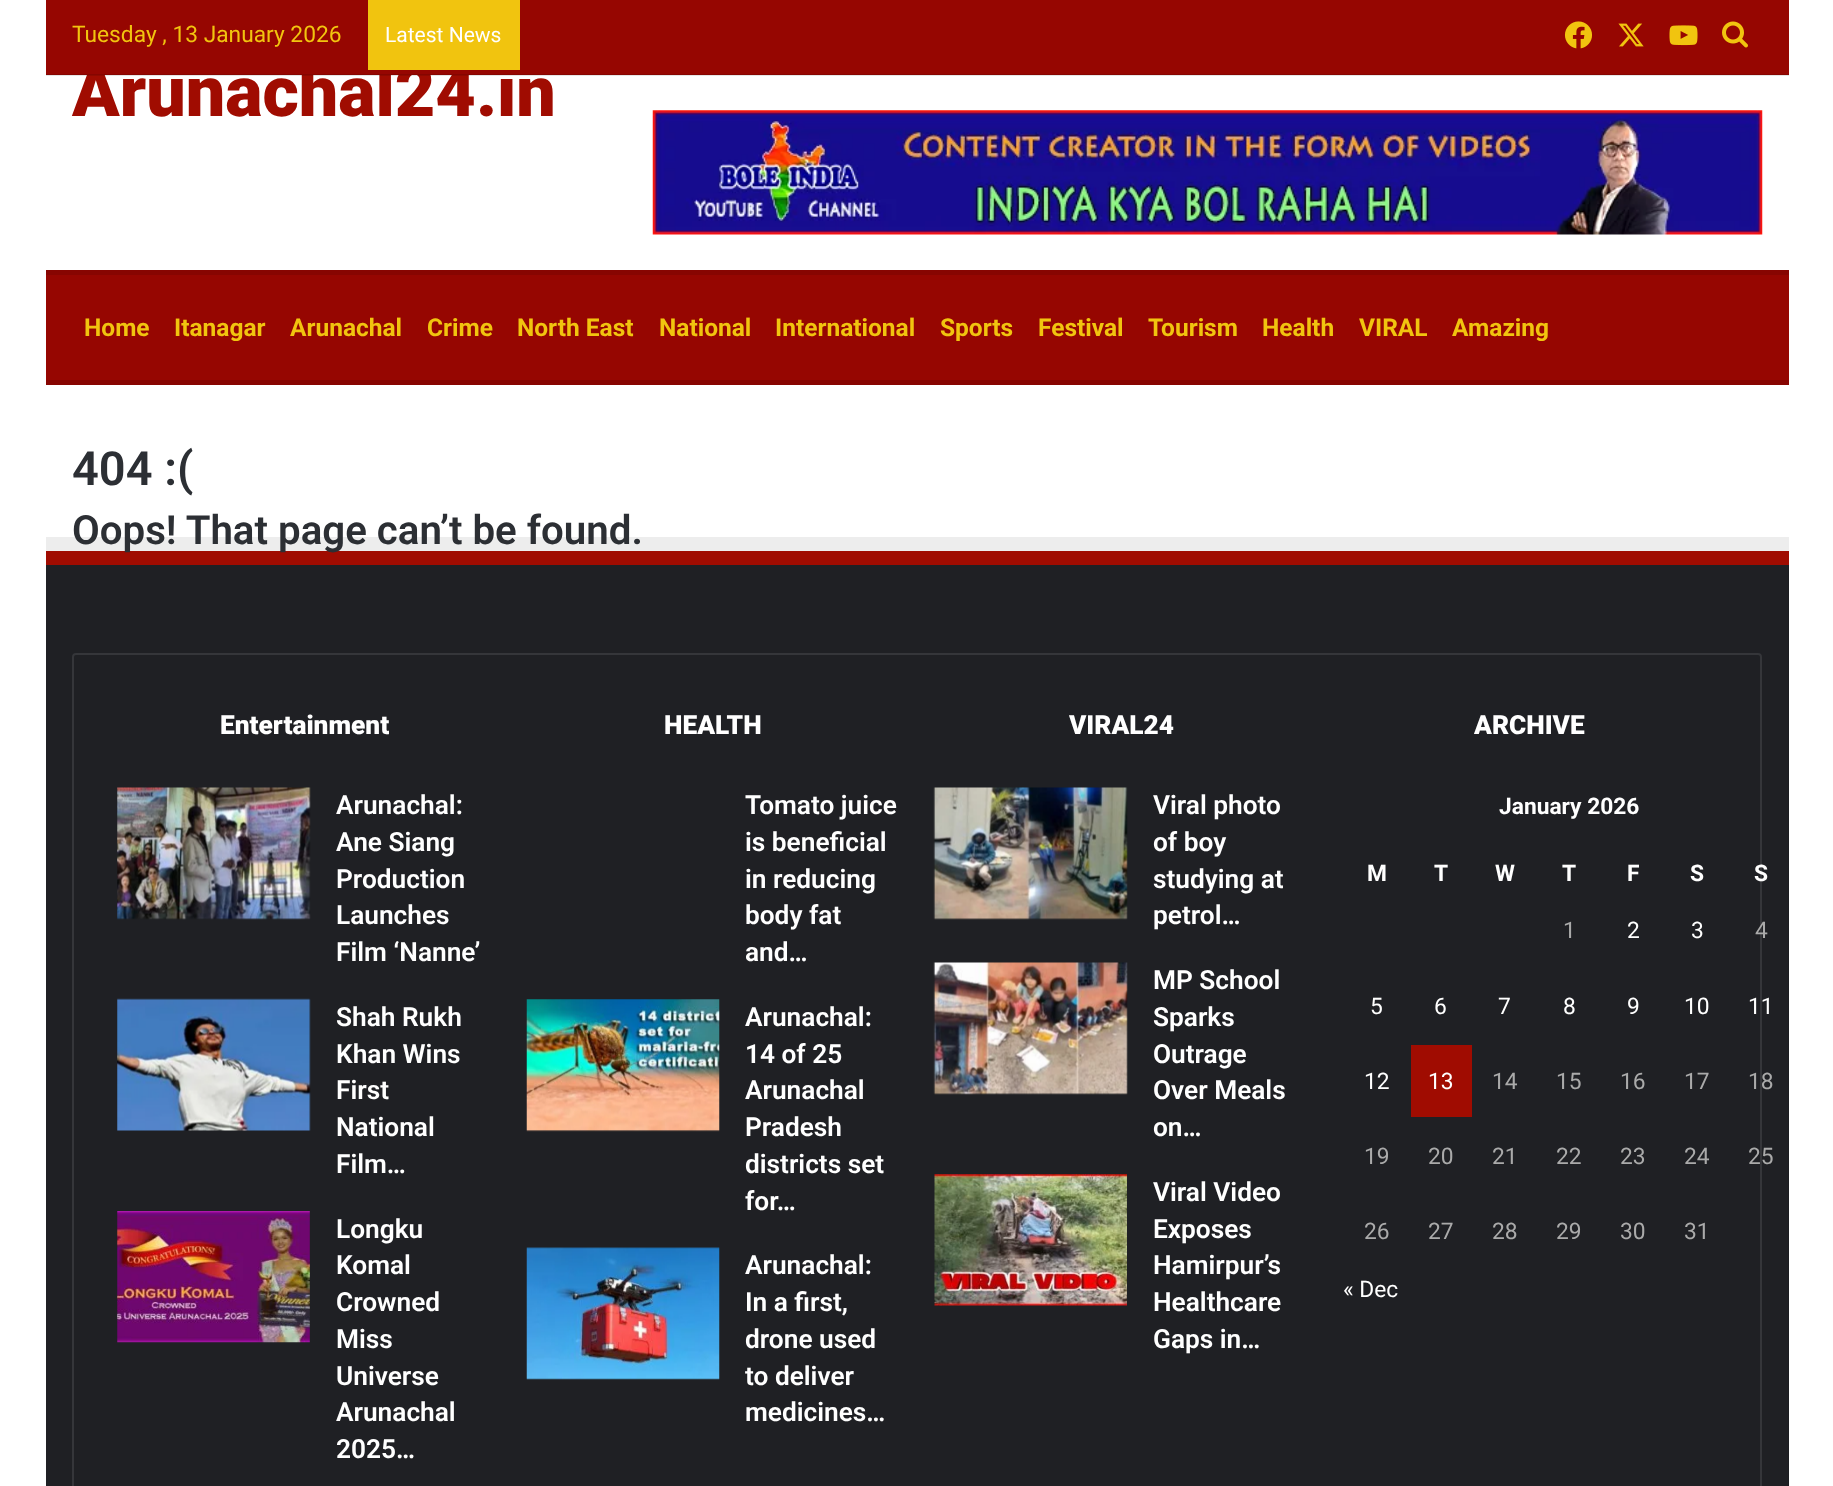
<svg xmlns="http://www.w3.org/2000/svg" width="1833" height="1486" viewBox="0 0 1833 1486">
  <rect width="100%" height="100%" fill="rgb(255,255,255)"/>
  <text x="72" y="116" font-family="Roboto" font-size="70" font-weight="900" fill="rgb(160,12,1)">Arunachal24.in</text>
  <rect x="46" y="0" width="1743" height="75" fill="rgb(150,6,1)"/>
  <rect x="46" y="74" width="1743" height="2" fill="rgba(0,0,0,0.1)"/>
  <text x="72" y="42" font-family="Roboto" font-size="22.75" fill="rgb(241,196,15)">Tuesday , 13 January 2026</text>
  <rect x="368" y="0" width="152" height="70" fill="rgb(241,196,15)"/>
  <text x="385" y="42" font-family="Roboto" font-size="21" fill="rgb(255,255,255)">Latest News</text>
  <image x="1564" y="21" width="28" height="28" href="pic1.png"/>
  <image x="1618" y="23" width="26" height="24" href="pic2.png"/>
  <image x="1669" y="25" width="29" height="21" href="pic3.png"/>
  <image x="1722" y="21" width="26" height="27" href="pic4.png"/>
  <image x="652" y="110" width="1111" height="125" href="pic5.png"/>
  <rect x="46" y="275" width="1743" height="105" fill="rgb(150,6,1)"/>
  <rect x="46" y="270" width="1743" height="5" fill="rgb(135,5,1)"/>
  <rect x="46" y="380" width="1743" height="5" fill="rgb(135,5,1)"/>
  <g font-family="Roboto" font-size="24.5" font-weight="bold" fill="rgb(241,196,15)">
    <text x="84" y="336">Home</text>
    <text x="174" y="336">Itanagar</text>
    <text x="290" y="336">Arunachal</text>
    <text x="427" y="336">Crime</text>
    <text x="517" y="336">North East</text>
    <text x="659" y="336">National</text>
    <text x="775" y="336">International</text>
    <text x="940" y="336">Sports</text>
    <text x="1038" y="336">Festival</text>
    <text x="1148" y="336">Tourism</text>
    <text x="1262" y="336">Health</text>
    <text x="1359" y="336">VIRAL</text>
    <text x="1452" y="336">Amazing</text>
  </g>
  <text x="72" y="485" font-family="Roboto" font-size="47" font-weight="600" fill="rgb(44,47,52)">404 :(</text>
  <rect x="46" y="565" width="1743" height="921" fill="rgb(31,32,36)"/>
  <path d="M46 537V551H1788V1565H1789V537Z" fill="rgba(0,0,0,0.07)"/>
  <rect x="46" y="551" width="1743" height="14" fill="rgb(160,12,1)"/>
  <text x="72" y="544" font-family="Roboto" font-size="40.25" font-weight="600" fill="rgb(44,47,52)">Oops! That page can’t be found.</text>
  <rect x="73" y="654" width="1688" height="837" rx="3" fill="none" stroke="rgb(53,54,58)" stroke-width="2"/>
  <text x="220" y="734" font-family="Roboto" font-size="26.25" font-weight="900" fill="rgb(255,255,255)">Entertainment</text>
  <image x="117" y="787" width="194" height="133" href="pic6.png"/>
  <g font-family="Roboto" font-size="26.25" font-weight="600" fill="rgb(255,255,255)">
    <text>
      <tspan x="336" y="814">Arunachal:</tspan>
      <tspan x="336" y="851">Ane Siang</tspan>
      <tspan x="336" y="888">Production</tspan>
      <tspan x="336" y="924">Launches</tspan>
      <tspan x="336" y="961">Film ‘Nanne’</tspan>
    </text>
  </g>
  <image x="117" y="998" width="194" height="133" href="pic7.png"/>
  <g font-family="Roboto" font-size="26.25" font-weight="600" fill="rgb(255,255,255)">
    <text>
      <tspan x="336" y="1026">Shah Rukh</tspan>
      <tspan x="336" y="1063">Khan Wins</tspan>
      <tspan x="336" y="1099">First</tspan>
      <tspan x="336" y="1136">National</tspan>
      <tspan x="336" y="1173">Film…</tspan>
    </text>
  </g>
  <image x="117" y="1211" width="193" height="132" href="pic8.png"/>
  <g font-family="Roboto" font-size="26.25" font-weight="600" fill="rgb(255,255,255)">
    <text>
      <tspan x="336" y="1238">Longku</tspan>
      <tspan x="336" y="1274">Komal</tspan>
      <tspan x="336" y="1311">Crowned</tspan>
      <tspan x="336" y="1348">Miss</tspan>
      <tspan x="336" y="1385">Universe</tspan>
      <tspan x="336" y="1421">Arunachal</tspan>
      <tspan x="336" y="1458">2025…</tspan>
    </text>
  </g>
  <text x="664" y="734" font-family="Roboto" font-size="26.25" font-weight="900" fill="rgb(255,255,255)">HEALTH</text>
  <g font-family="Roboto" font-size="26.25" font-weight="600" fill="rgb(255,255,255)">
    <text>
      <tspan x="745" y="814">Tomato juice</tspan>
      <tspan x="745" y="851">is beneficial</tspan>
      <tspan x="745" y="888">in reducing</tspan>
      <tspan x="745" y="924">body fat</tspan>
      <tspan x="745" y="961">and…</tspan>
    </text>
  </g>
  <image x="526" y="999" width="194" height="133" href="pic9.png"/>
  <g font-family="Roboto" font-size="26.25" font-weight="600" fill="rgb(255,255,255)">
    <text>
      <tspan x="745" y="1026">Arunachal:</tspan>
      <tspan x="745" y="1063">14 of 25</tspan>
      <tspan x="745" y="1099">Arunachal</tspan>
      <tspan x="745" y="1136">Pradesh</tspan>
      <tspan x="745" y="1173">districts set</tspan>
      <tspan x="745" y="1210">for…</tspan>
    </text>
  </g>
  <image x="526" y="1247" width="194" height="133" href="pic10.png"/>
  <g font-family="Roboto" font-size="26.25" font-weight="600" fill="rgb(255,255,255)">
    <text>
      <tspan x="745" y="1274">Arunachal:</tspan>
      <tspan x="745" y="1311">In a first,</tspan>
      <tspan x="745" y="1348">drone used</tspan>
      <tspan x="745" y="1385">to deliver</tspan>
      <tspan x="745" y="1421">medicines…</tspan>
    </text>
  </g>
  <text x="1069" y="734" font-family="Roboto" font-size="26.25" font-weight="900" fill="rgb(255,255,255)">VIRAL24</text>
  <image x="933" y="787" width="195" height="133" href="pic11.png"/>
  <g font-family="Roboto" font-size="26.25" font-weight="600" fill="rgb(255,255,255)">
    <text>
      <tspan x="1153" y="814">Viral photo</tspan>
      <tspan x="1153" y="851">of boy</tspan>
      <tspan x="1153" y="888">studying at</tspan>
      <tspan x="1153" y="924">petrol…</tspan>
    </text>
  </g>
  <image x="933" y="962" width="195" height="133" href="pic12.png"/>
  <g font-family="Roboto" font-size="26.25" font-weight="600" fill="rgb(255,255,255)">
    <text>
      <tspan x="1153" y="989">MP School</tspan>
      <tspan x="1153" y="1026">Sparks</tspan>
      <tspan x="1153" y="1063">Outrage</tspan>
      <tspan x="1153" y="1099">Over Meals</tspan>
      <tspan x="1153" y="1136">on…</tspan>
    </text>
  </g>
  <image x="934" y="1174" width="193" height="132" href="pic13.png"/>
  <g font-family="Roboto" font-size="26.25" font-weight="600" fill="rgb(255,255,255)">
    <text>
      <tspan x="1153" y="1201">Viral Video</tspan>
      <tspan x="1153" y="1238">Exposes</tspan>
      <tspan x="1153" y="1274">Hamirpur’s</tspan>
      <tspan x="1153" y="1311">Healthcare</tspan>
      <tspan x="1153" y="1348">Gaps in…</tspan>
    </text>
  </g>
  <text x="1474" y="734" font-family="Roboto" font-size="26.25" font-weight="900" fill="rgb(255,255,255)">ARCHIVE</text>
  <g font-family="Roboto" font-size="22.75" font-weight="bold" fill="rgb(255,255,255)">
    <text x="1499" y="814">January 2026</text>
    <text x="1367" y="881">M</text>
    <text x="1434" y="881">T</text>
    <text x="1495" y="881">W</text>
    <text x="1562" y="881">T</text>
    <text x="1627" y="881">F</text>
    <text x="1690" y="881">S</text>
    <text x="1754" y="881">S</text>
  </g>
  <text x="1563" y="938" font-family="Roboto" font-size="22.75" fill="rgb(170,170,170)">1</text>
  <g font-family="Roboto" font-size="22.75" fill="rgb(255,255,255)">
    <text x="1627" y="938">2</text>
    <text x="1691" y="938">3</text>
  </g>
  <text x="1755" y="938" font-family="Roboto" font-size="22.75" fill="rgb(170,170,170)">4</text>
  <g font-family="Roboto" font-size="22.75" fill="rgb(255,255,255)">
    <text x="1370" y="1014">5</text>
    <text x="1434" y="1014">6</text>
    <text x="1498" y="1014">7</text>
    <text x="1563" y="1014">8</text>
    <text x="1627" y="1014">9</text>
    <text x="1684" y="1014">10</text>
    <text x="1748" y="1014">11</text>
    <text x="1364" y="1089">12</text>
  </g>
  <rect x="1411" y="1045" width="61" height="72" fill="rgb(160,12,1)"/>
  <text x="1428" y="1089" font-family="Roboto" font-size="22.75" fill="rgb(255,255,255)">13</text>
  <g font-family="Roboto" font-size="22.75" fill="rgb(170,170,170)">
    <text x="1492" y="1089">14</text>
    <text x="1556" y="1089">15</text>
    <text x="1620" y="1089">16</text>
    <text x="1684" y="1089">17</text>
    <text x="1748" y="1089">18</text>
    <text x="1364" y="1164">19</text>
    <text x="1428" y="1164">20</text>
    <text x="1492" y="1164">21</text>
    <text x="1556" y="1164">22</text>
    <text x="1620" y="1164">23</text>
    <text x="1684" y="1164">24</text>
    <text x="1748" y="1164">25</text>
    <text x="1364" y="1239">26</text>
    <text x="1428" y="1239">27</text>
    <text x="1492" y="1239">28</text>
    <text x="1556" y="1239">29</text>
    <text x="1620" y="1239">30</text>
    <text x="1684" y="1239">31</text>
  </g>
  <text x="1343" y="1297" font-family="Roboto" font-size="22.75" fill="rgb(255,255,255)">« Dec</text>
</svg>
